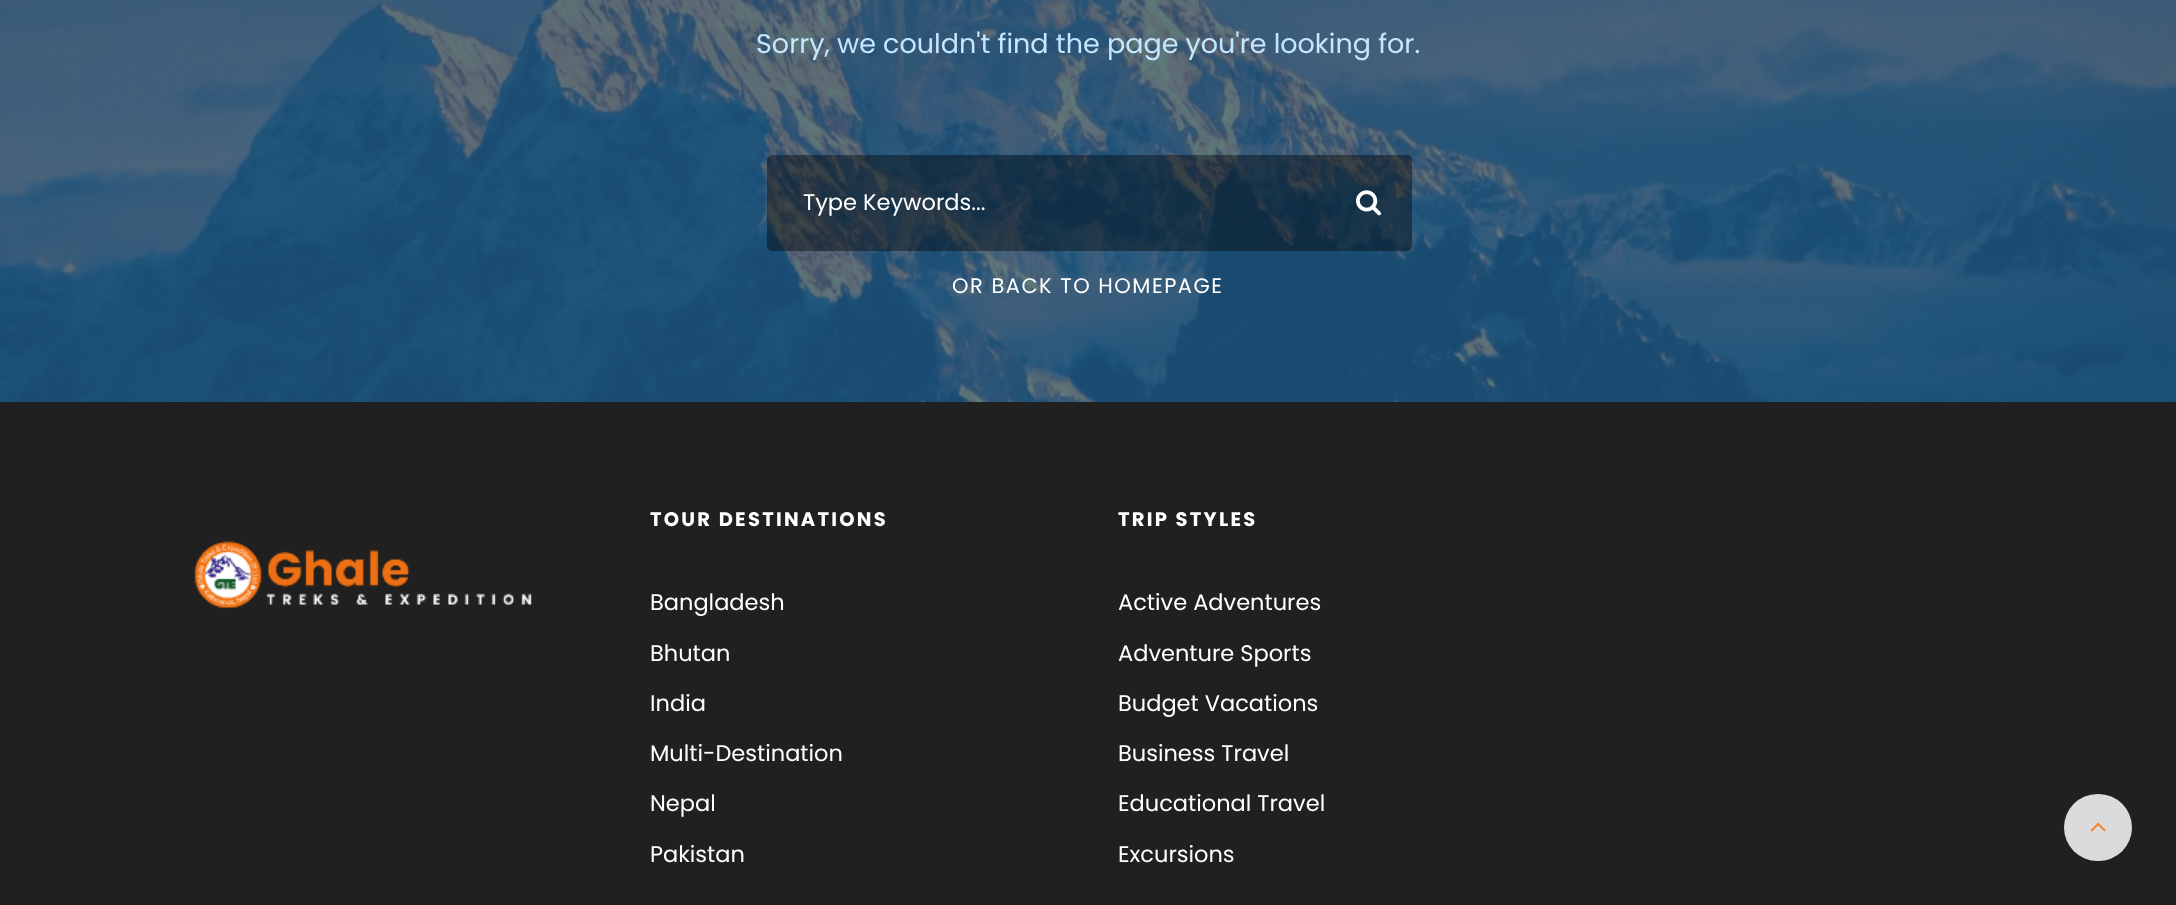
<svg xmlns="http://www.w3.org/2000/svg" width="2176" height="905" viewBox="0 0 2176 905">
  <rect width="100%" height="100%" fill="rgb(32,32,32)"/>
  <rect x="0" y="0" width="2176" height="402" fill="rgb(35,97,142)"/>
  <image x="0" y="0" width="2176" height="402" href="pic1.png"/>
  <text x="756" y="53" font-family="Poppins" font-size="27" fill="rgb(195,231,255)">Sorry, we couldn't find the page you're looking for.</text>
  <rect x="767" y="155" width="645" height="96" rx="5" fill="rgba(0,0,0,0.4)"/>
  <text x="803" y="210" font-family="Poppins" font-size="22.5" fill="rgb(255,255,255)">Type Keywords...</text>
  <image x="1356" y="190" width="26" height="26" href="pic2.png"/>
  <text x="952" y="293" font-family="Poppins" font-size="21" letter-spacing="1.5" fill="rgb(255,255,255)">OR BACK TO HOMEPAGE</text>
  <image x="194" y="541" width="338" height="68" href="pic3.png"/>
  <text x="650" y="526" font-family="Poppins" font-size="19.5" font-weight="bold" letter-spacing="2.25" fill="rgb(255,255,255)">TOUR DESTINATIONS</text>
  <g font-family="Poppins" font-size="22.5" fill="rgb(255,255,255)">
    <text x="650" y="610">Bangladesh</text>
    <text x="650" y="661">Bhutan</text>
    <text x="650" y="711">India</text>
    <text x="650" y="761">Multi-Destination</text>
    <text x="650" y="811">Nepal</text>
    <text x="650" y="862">Pakistan</text>
  </g>
  <text x="1118" y="526" font-family="Poppins" font-size="19.5" font-weight="bold" letter-spacing="2.25" fill="rgb(255,255,255)">TRIP STYLES</text>
  <g font-family="Poppins" font-size="22.5" fill="rgb(255,255,255)">
    <text x="1118" y="610">Active Adventures</text>
    <text x="1118" y="661">Adventure Sports</text>
    <text x="1118" y="711">Budget Vacations</text>
    <text x="1118" y="761">Business Travel</text>
    <text x="1118" y="811">Educational Travel</text>
    <text x="1118" y="862">Excursions</text>
  </g>
  <rect x="2064" y="794" width="68" height="67" rx="33.5" fill="rgb(219,219,219)"/>
  <image x="2090" y="822" width="16" height="10" href="pic4.png"/>
</svg>
